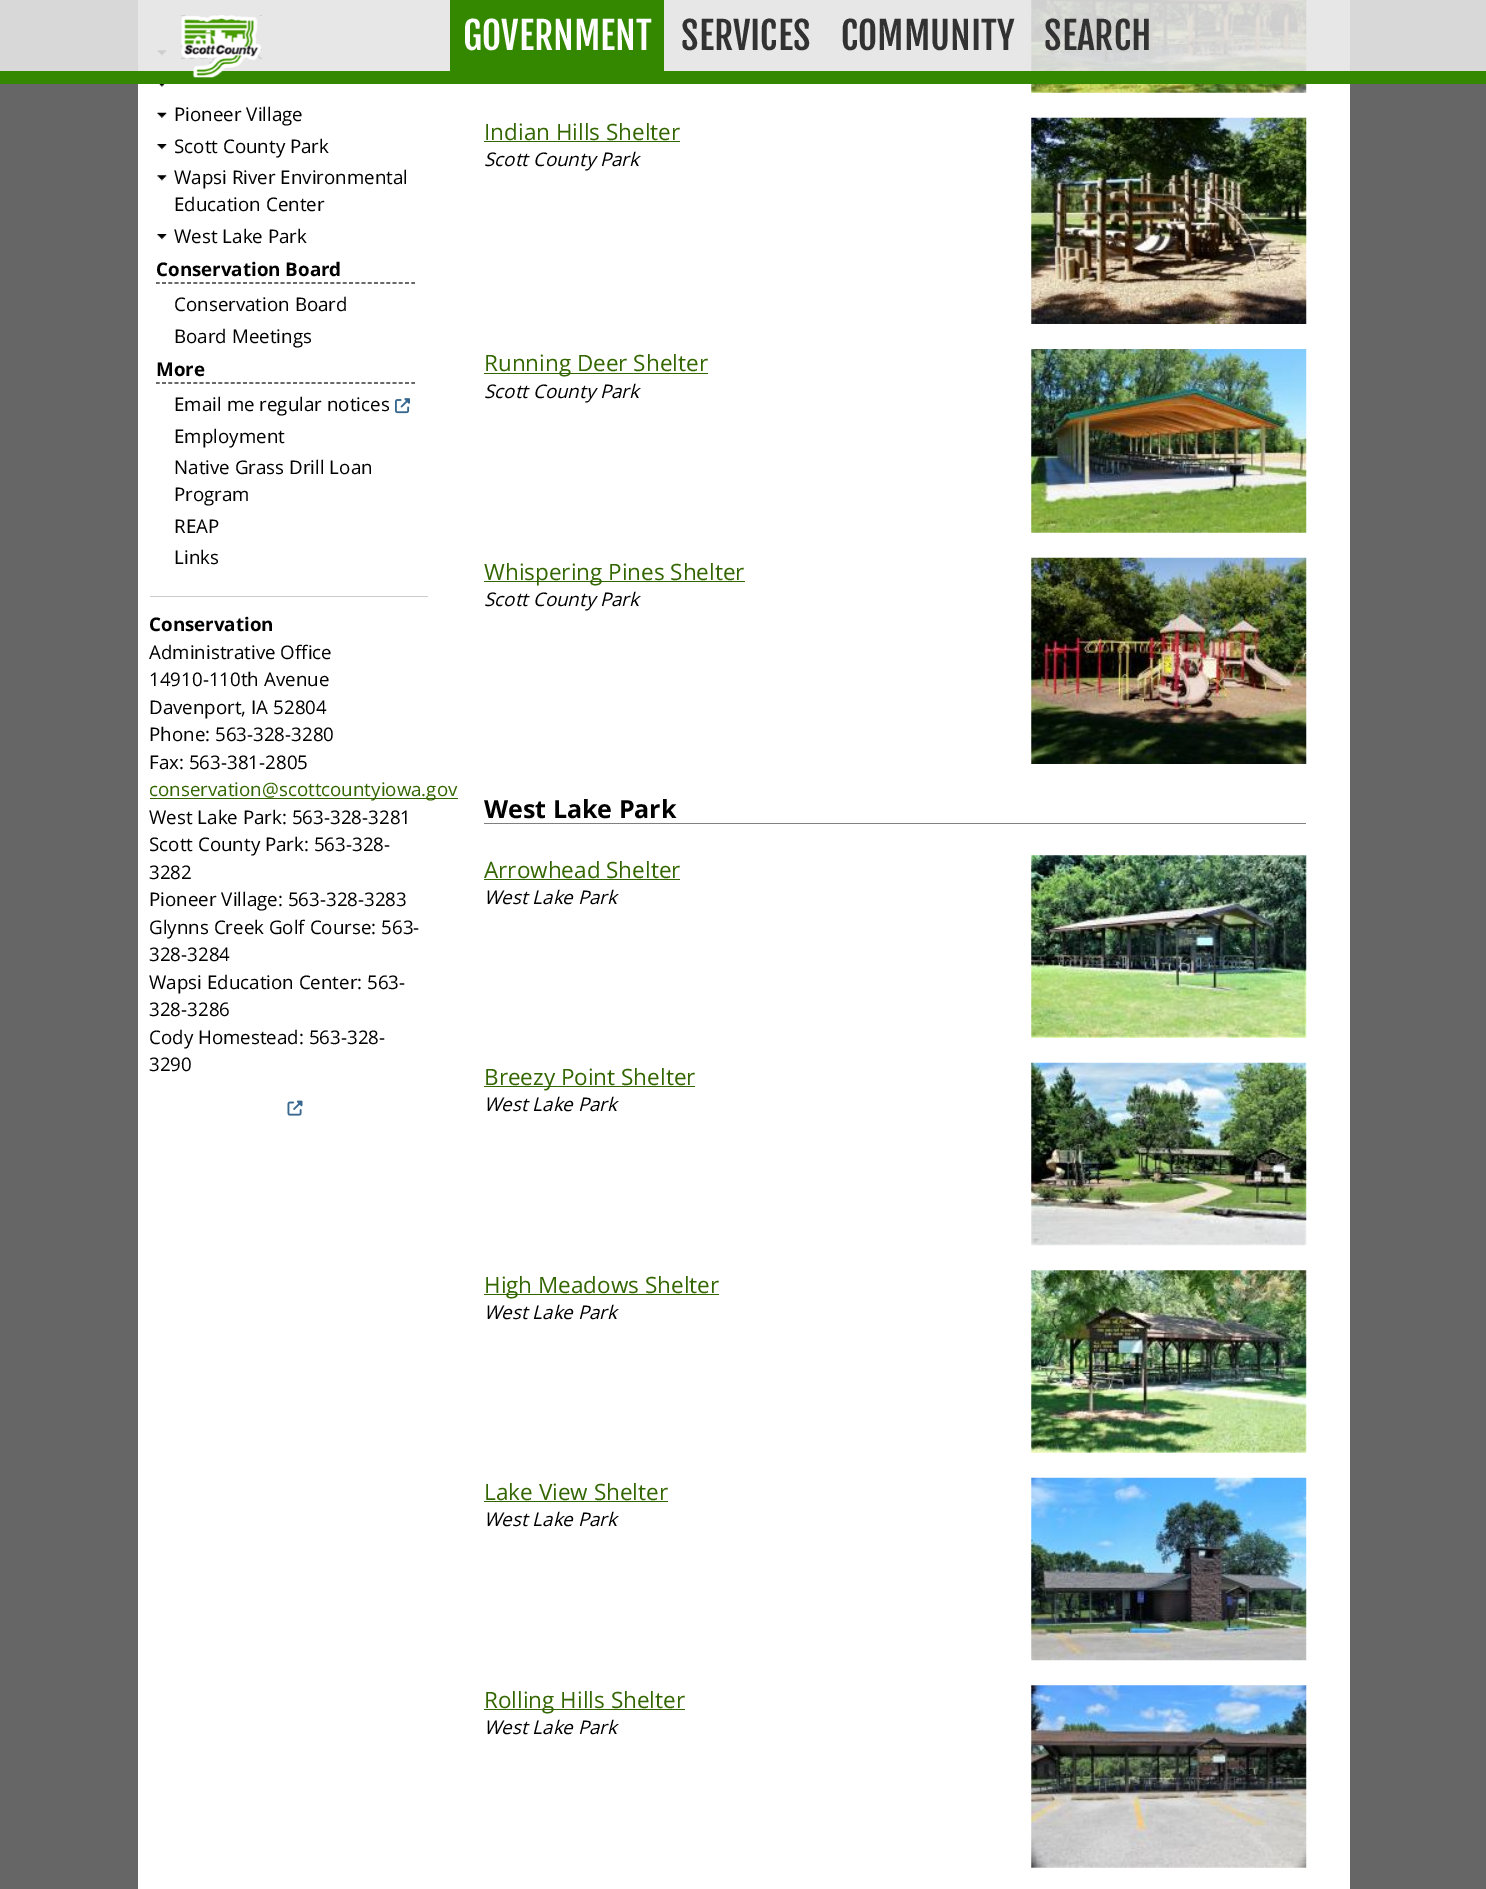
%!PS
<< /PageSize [1486 1889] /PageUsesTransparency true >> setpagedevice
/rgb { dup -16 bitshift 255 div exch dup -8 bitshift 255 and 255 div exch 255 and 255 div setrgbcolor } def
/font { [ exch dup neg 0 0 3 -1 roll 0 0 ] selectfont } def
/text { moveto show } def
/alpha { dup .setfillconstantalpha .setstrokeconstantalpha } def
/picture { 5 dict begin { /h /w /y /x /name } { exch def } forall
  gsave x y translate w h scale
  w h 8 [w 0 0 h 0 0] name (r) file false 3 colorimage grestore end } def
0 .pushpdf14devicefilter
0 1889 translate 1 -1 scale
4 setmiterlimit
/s1 { /FjallaOne-Regular 37.5 font 16#FFFFFF rgb } def
/s2 { /FjallaOne-Regular 37.5 font 16#323232 rgb } def
/s3 { /OpenSans-Regular 18.75 font 16#000000 rgb } def
/s4 { /OpenSans-Bold 18.75 font 16#000000 rgb } def
/s5 { /OpenSans-Regular 18.75 font 16#336600 rgb } def
/s6 { /OpenSans-Regular 22.5 font 16#336600 rgb } def
/s7 { /OpenSans-Italic 18.75 font 16#000000 rgb } def
/s8 { /OpenSans-Bold 25 font 16#000000 rgb } def
16#666666 rgb
0 0 1486 1889 rectfill
16#FFFFFF rgb
138 0 1212 1889 rectfill
(pic8.raw) 1031 0 276 93 picture
16#338800 rgb
0 71 1486 13 rectfill
(pic2.raw) 157 50 10 6 picture
0.9 alpha
16#E4E4E4 rgb
0 0 1486 71 rectfill
1 alpha
(pic1.raw) 181 15 81 63 picture
16#338800 rgb
450 0 214 71 rectfill
s1
(GOVERNMENT) 463 50 text
s2
(SERVICES) 681 50 text
(COMMUNITY) 841 50 text
(SEARCH) 1044 50 text
(pic3.raw) 158 84 7 3 picture
(pic4.raw) 157 112 10 6 picture
s3
(Pioneer Village) 174 121 text
(pic5.raw) 157 144 10 6 picture
(Scott County Park) 174 153 text
(pic2.raw) 157 175 10 6 picture
(Wapsi River Environmental) 174 184 text
(Education Center) 174 211 text
(pic5.raw) 157 234 10 6 picture
(West Lake Park) 174 243 text
16#333333 rgb
1.2 setlinewidth
[3.75 2.48] 0 setdash
156 283 moveto 415 283 lineto stroke
s4
(Conservation Board) 156 276 text
s3
(Conservation Board) 174 311 text
(Board Meetings) 174 343 text
16#333333 rgb
156 383 moveto 415 383 lineto stroke
s4
(More) 156 376 text
s3
(Email me regular notices) 174 411 text
(pic6.raw) 395 398 15 16 picture
(Employment) 174 443 text
(Native Grass Drill Loan) 174 474 text
(Program) 174 501 text
(REAP) 174 533 text
(Links) 174 564 text
16#CCCCCC rgb
150 596 278 1 rectfill
s4
(Conservation) 149 631 text
s3
(Administrative Office) 149 659 text
(14910-110th Avenue) 149 686 text
(Davenport, IA 52804) 149 714 text
(Phone: 563-328-3280) 149 741 text
(Fax: 563-381-2805) 149 769 text
16#336600 rgb
150 798 308 1 rectfill
(conservation@scottcountyiowa.gov) 149 796 text
s3
(West Lake Park: 563-328-3281) 149 824 text
(Scott County Park: 563-328-) 149 851 text
(3282) 149 879 text
(Pioneer Village: 563-328-3283) 149 906 text
(Glynns Creek Golf Course: 563-) 149 934 text
(328-3284) 149 961 text
(Wapsi Education Center: 563-) 149 989 text
(328-3286) 149 1016 text
(Cody Homestead: 563-328-) 149 1044 text
(3290) 149 1071 text
(pic7.raw) 287 1100 16 16 picture
s6
(Indian Hills Shelter) 484 140 text
484 141 196 1 rectfill
(pic9.raw) 1031 117 276 207 picture
s7
(Scott County Park) 484 166 text
16#336600 rgb
484 373 224 1 rectfill
s6
(Running Deer Shelter) 484 371 text
(pic10.raw) 1031 349 276 184 picture
s7
(Scott County Park) 484 398 text
16#336600 rgb
484 581 261 1 rectfill
s6
(Whispering Pines Shelter) 484 580 text
(pic11.raw) 1031 557 276 207 picture
s7
(Scott County Park) 484 606 text
16#808080 rgb
484 823 822 1 rectfill
s8
(West Lake Park) 484 818 text
s6
(Arrowhead Shelter) 484 878 text
484 879 196 1 rectfill
(pic12.raw) 1031 855 276 183 picture
s7
(West Lake Park) 484 904 text
16#336600 rgb
484 1086 211 1 rectfill
s6
(Breezy Point Shelter) 484 1085 text
(pic13.raw) 1031 1062 276 184 picture
s7
(West Lake Park) 484 1111 text
16#336600 rgb
484 1294 235 1 rectfill
s6
(High Meadows Shelter) 484 1293 text
(pic14.raw) 1031 1270 276 183 picture
s7
(West Lake Park) 484 1319 text
s6
(Lake View Shelter) 484 1500 text
484 1501 184 1 rectfill
(pic15.raw) 1031 1477 276 184 picture
s7
(West Lake Park) 484 1526 text
16#336600 rgb
484 1709 201 1 rectfill
s6
(Rolling Hills Shelter) 484 1708 text
(pic16.raw) 1031 1685 276 183 picture
s7
(West Lake Park) 484 1734 text
.poppdf14devicefilter showpage
